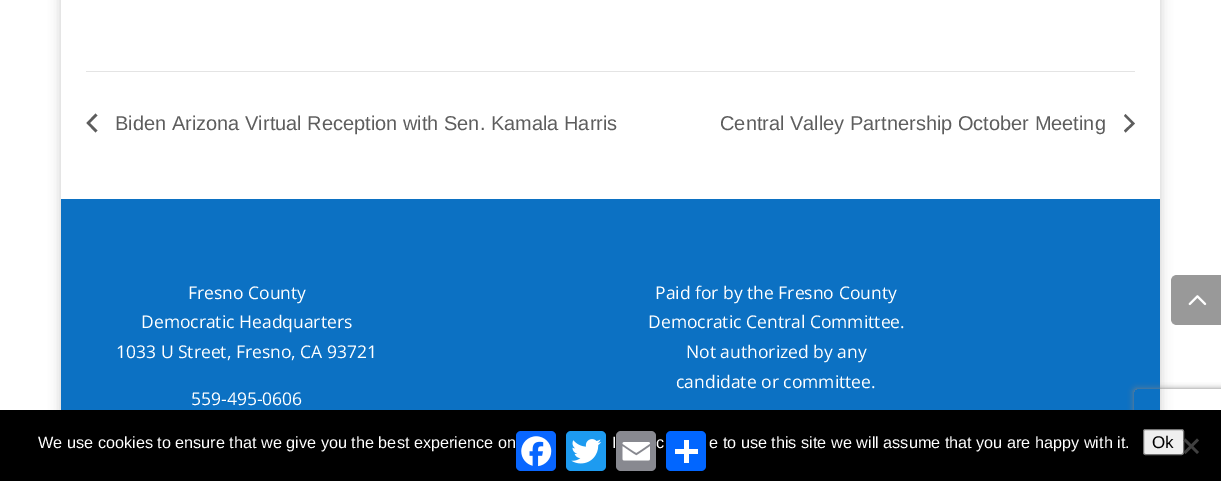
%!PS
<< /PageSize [1221 481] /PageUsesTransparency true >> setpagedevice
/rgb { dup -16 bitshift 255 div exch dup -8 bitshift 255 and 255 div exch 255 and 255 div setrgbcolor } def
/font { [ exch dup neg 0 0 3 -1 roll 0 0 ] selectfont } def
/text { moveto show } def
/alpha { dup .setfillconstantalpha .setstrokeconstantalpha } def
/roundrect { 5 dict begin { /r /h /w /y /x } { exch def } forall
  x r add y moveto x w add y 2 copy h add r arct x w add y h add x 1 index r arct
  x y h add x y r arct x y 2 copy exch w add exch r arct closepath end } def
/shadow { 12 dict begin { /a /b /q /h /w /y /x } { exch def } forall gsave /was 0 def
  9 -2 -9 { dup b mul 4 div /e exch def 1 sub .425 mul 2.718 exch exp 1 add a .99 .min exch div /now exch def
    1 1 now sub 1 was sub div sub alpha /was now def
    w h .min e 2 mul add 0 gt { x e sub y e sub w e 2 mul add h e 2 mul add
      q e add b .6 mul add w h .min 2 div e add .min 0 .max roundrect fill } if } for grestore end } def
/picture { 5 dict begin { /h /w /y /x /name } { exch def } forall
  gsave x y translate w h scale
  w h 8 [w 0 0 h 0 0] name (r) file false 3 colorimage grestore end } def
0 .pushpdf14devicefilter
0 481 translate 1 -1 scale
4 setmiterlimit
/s1 { /LiberationSans-Regular 20 font 16#5D5D5D rgb } def
/s2 { /OpenSans-Regular 17.5 font 16#FFFFFF rgb } def
/s3 { /LiberationSans-Regular 16.25 font 16#FFFFFF rgb } def
/s4 { /LiberationSans-Regular 17 font 16#000000 rgb } def
16#FFFFFF rgb
0 0 1221 481 rectfill
gsave
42 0 moveto 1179 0 lineto 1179 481 lineto 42 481 lineto closepath 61 -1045 moveto 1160 -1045 lineto 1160 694 lineto 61 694 lineto closepath eoclip newpath
16#000000 rgb
61 -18 1099 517 0 6 0.2 shadow
grestore
16#E4E4E4 rgb
86 71 1049 1 rectfill
16#5D5D5D rgb
97.5 130.5 moveto 95.5 132.5 lineto 86.5 123 lineto 95.5 113.5 lineto 97.5 115.5 lineto 90 123 lineto closepath fill
s1
(Biden Arizona Virtual Reception with Sen. Kamala Harris) 115 130 text
(Central Valley Partnership October Meeting) 720 130 text
1124 116 moveto 1125.5 114 lineto 1135 123.5 lineto 1125.5 132.5 lineto 1124 130.5 lineto 1131.5 123.5 lineto closepath fill
16#0C71C3 rgb
61 199 1099 211 rectfill
s2
(Fresno County) 188 299 text
(Democratic Headquarters) 141 328 text
(1033 U Street, Fresno, CA 93721) 116 358 text
(559-495-0606) 191 405 text
(Paid for by the Fresno County) 655 299 text
(Democratic Central Committee.) 648 328 text
(Not authorized by any) 686 358 text
(candidate or committee.) 676 388 text
16#999999 rgb
1177 275 moveto 1221 275 lineto 1221 325 lineto 1177 325 lineto 1173.5 325 1171 322.5 1171 319 curveto 1171 281 lineto 1171 277.5 1173.5 275 1177 275 curveto closepath fill
(pic1.raw) 1188 295 19 11 picture
gsave
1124 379 moveto 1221 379 lineto 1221 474 lineto 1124 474 lineto closepath 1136.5 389 moveto 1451.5 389 lineto 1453 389 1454 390 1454 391.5 curveto 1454 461.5 lineto 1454 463 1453 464 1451.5 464 curveto 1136.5 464 lineto 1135 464 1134 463 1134 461.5 curveto 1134 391.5 lineto 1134 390 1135 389 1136.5 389 curveto closepath eoclip newpath
16#808080 rgb
1134 389 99 75 2.5 3 1 shadow
grestore
16#000000 rgb
0 410 1221 71 rectfill
16#0866FF rgb
516 431 40 40 5 roundrect fill
(pic2.raw) 521 436 31 31 picture
16#1D9BF0 rgb
566 431 40 40 5 roundrect fill
(pic3.raw) 571 439 31 25 picture
16#888990 rgb
616 431 40 40 5 roundrect fill
(pic4.raw) 622 442 28 19 picture
16#0166FF rgb
666 431 40 40 5 roundrect fill
16#FFFFFF rgb
684 440 5 23 rectfill
675 449 23 5 rectfill
s3
(We use cookies to ensure that we give you the best experience on) 38 448 text
(I) 612 448 text
(c) 656 448 text
(e to use this site we will assume that you are happy with it.) 709 448 text
16#EFEFEF rgb
1143.5 429.5 40 25 2 roundrect gsave fill grestore
16#767676 rgb
stroke
s4
(Ok) 1152 448 text
16#404040 rgb
1197 438.5 moveto 1199 440.5 lineto 1185.5 454 lineto 1183.5 452 lineto closepath fill
1183.5 440.5 moveto 1185.5 438.5 lineto 1199 452 lineto 1197 454 lineto closepath fill
.poppdf14devicefilter showpage
